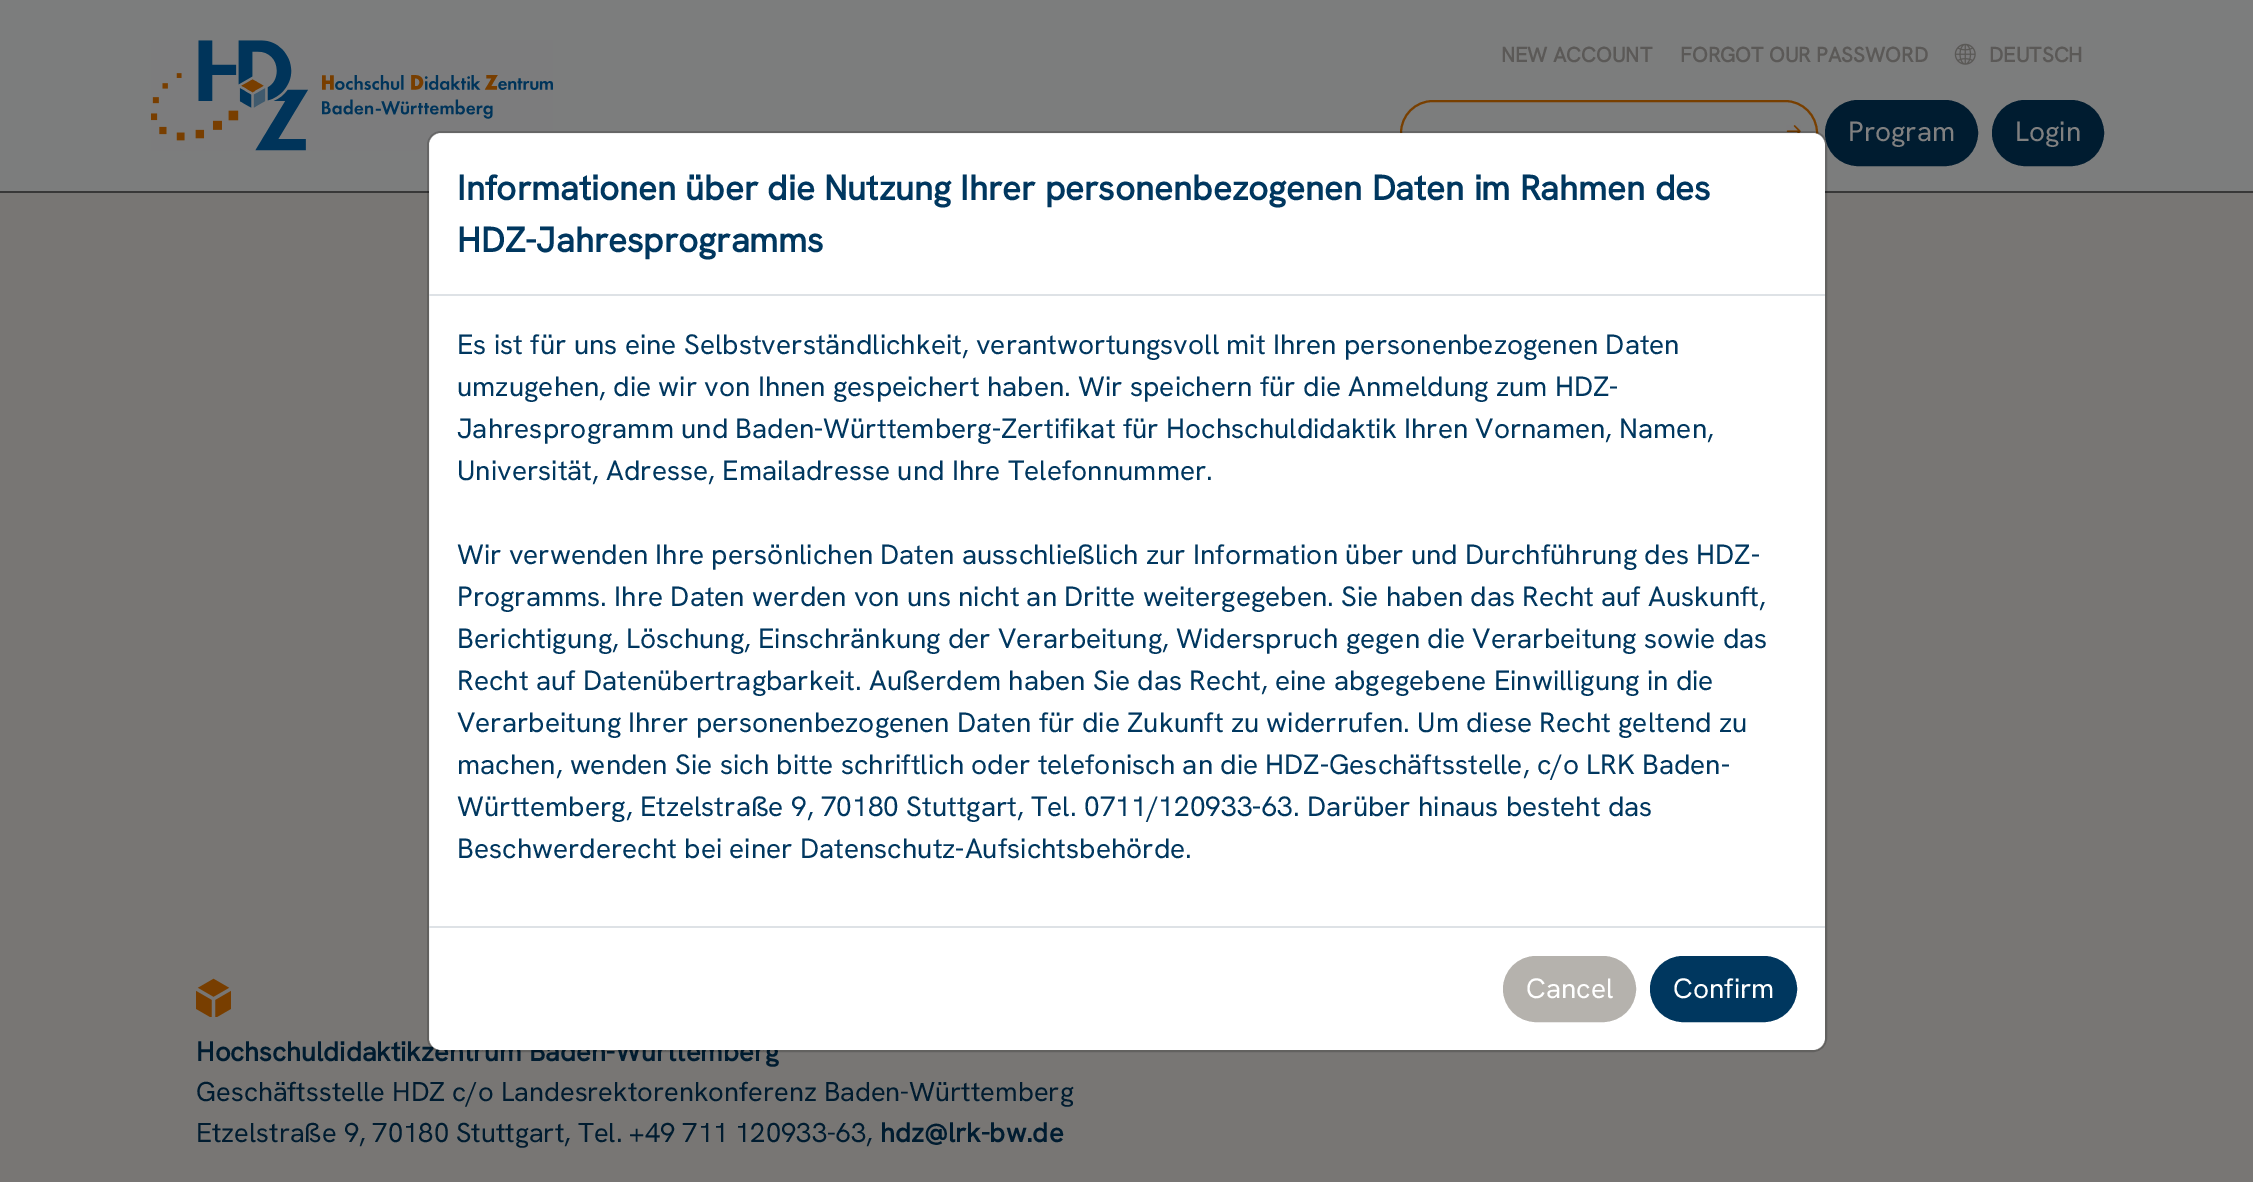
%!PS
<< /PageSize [2253 1182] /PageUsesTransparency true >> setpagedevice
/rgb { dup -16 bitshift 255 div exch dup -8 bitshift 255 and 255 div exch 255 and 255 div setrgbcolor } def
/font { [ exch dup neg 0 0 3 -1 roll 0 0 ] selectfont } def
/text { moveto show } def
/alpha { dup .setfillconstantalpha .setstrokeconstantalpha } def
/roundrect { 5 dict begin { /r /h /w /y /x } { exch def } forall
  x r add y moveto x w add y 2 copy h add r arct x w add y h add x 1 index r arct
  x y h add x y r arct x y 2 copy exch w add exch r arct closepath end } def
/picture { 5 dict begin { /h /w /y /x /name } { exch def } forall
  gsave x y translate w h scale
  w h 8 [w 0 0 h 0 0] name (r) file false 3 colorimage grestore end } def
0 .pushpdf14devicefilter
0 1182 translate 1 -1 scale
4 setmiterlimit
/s1 { /HankenGrotesk-Bold 21 font 16#5B5957 rgb } def
/s2 { /HankenGrotesk-Regular 28 font 16#808080 rgb } def
/s3 { /HankenGrotesk-Bold 27.3 font 16#001C30 rgb } def
/s4 { /HankenGrotesk-Bold 35 font 16#00375F rgb } def
/s5 { /HankenGrotesk-Regular 28 font 16#00375F rgb } def
/s6 { /HankenGrotesk-Regular 28 font 16#FFFFFF rgb } def
/s7 { /HankenGrotesk-Regular 27.3 font 16#001C30 rgb } def
16#787674 rgb
0 0 2253 1182 rectfill
16#7C7D7D rgb
0 0 2253 191 rectfill
16#383838 rgb
0 191 2253 2 rectfill
(pic1.raw) 151 40 402 111 picture
s1
(NEW ACCOUNT) 1501 62 text
(FORGOT OUR PASSWORD) 1680 62 text
(pic2.raw) 1954 43 22 22 picture
(DEUTSCH) 1989 62 text
16#783F00 rgb
2 setlinewidth
1401 101 416 64 32 roundrect stroke
(pic3.raw) 1786 125 15 8 picture
16#001C30 rgb
1826 101 151 64 32 roundrect gsave fill grestore
stroke
s2
(Program) 1848 141 text
16#001C30 rgb
1993 101 110 64 32 roundrect gsave fill grestore
stroke
s2
(Login) 2015 141 text
s3
(Hochschuldidaktikzentrum Baden-Württemberg) 196 1061 text
16#FFFFFF rgb
429 133 1396 917 12 roundrect fill
0.18 alpha
16#000000 rgb
428 132 1398 919 13 roundrect stroke
1 alpha
16#DEE2E6 rgb
429 294 1396 2 rectfill
s4
(Informationen über die Nutzung Ihrer personenbezogenen Daten im Rahmen des) 457 200 text
(HDZ-Jahresprogramms) 457 252 text
s5
(Es ist für uns eine Selbstverständlichkeit, verantwortungsvoll mit Ihren personenbezogenen Daten) 457 354 text
(umzugehen, die wir von Ihnen gespeichert haben. Wir speichern für die Anmeldung zum HDZ-) 457 396 text
(Jahresprogramm und Baden-Württemberg-Zertifikat für Hochschuldidaktik Ihren Vornamen, Namen,) 457 438 text
(Universität, Adresse, Emailadresse und Ihre Telefonnummer.) 457 480 text
(Wir verwenden Ihre persönlichen Daten ausschließlich zur Information über und Durchführung des HDZ-) 457 564 text
(Programms. Ihre Daten werden von uns nicht an Dritte weitergegeben. Sie haben das Recht auf Auskunft,) 457 606 text
(Berichtigung, Löschung, Einschränkung der Verarbeitung, Widerspruch gegen die Verarbeitung sowie das) 457 648 text
(Recht auf Datenübertragbarkeit. Außerdem haben Sie das Recht, eine abgegebene Einwilligung in die) 457 690 text
(Verarbeitung Ihrer personenbezogenen Daten für die Zukunft zu widerrufen. Um diese Recht geltend zu) 457 732 text
(machen, wenden Sie sich bitte schriftlich oder telefonisch an die HDZ-Geschäftsstelle, c/o LRK Baden-) 457 774 text
(Württemberg, Etzelstraße 9, 70180 Stuttgart, Tel. 0711/120933-63. Darüber hinaus besteht das) 457 816 text
(Beschwerderecht bei einer Datenschutz-Aufsichtsbehörde.) 457 858 text
16#DEE2E6 rgb
429 926 1396 2 rectfill
16#B5B2AD rgb
1504 957 131 64 32 roundrect gsave fill grestore
stroke
s6
(Cancel) 1526 998 text
16#00375F rgb
1651 957 145 64 32 roundrect gsave fill grestore
stroke
s6
(Confirm) 1673 998 text
(pic4.raw) 196 978 35 39 picture
s7
(Geschäftsstelle HDZ c/o Landesrektorenkonferenz Baden-Württemberg) 196 1101 text
(Etzelstraße 9, 70180 Stuttgart, Tel. +49 711 120933-63,) 196 1142 text
s3
(hdz@lrk-bw.de) 880 1142 text
.poppdf14devicefilter showpage
